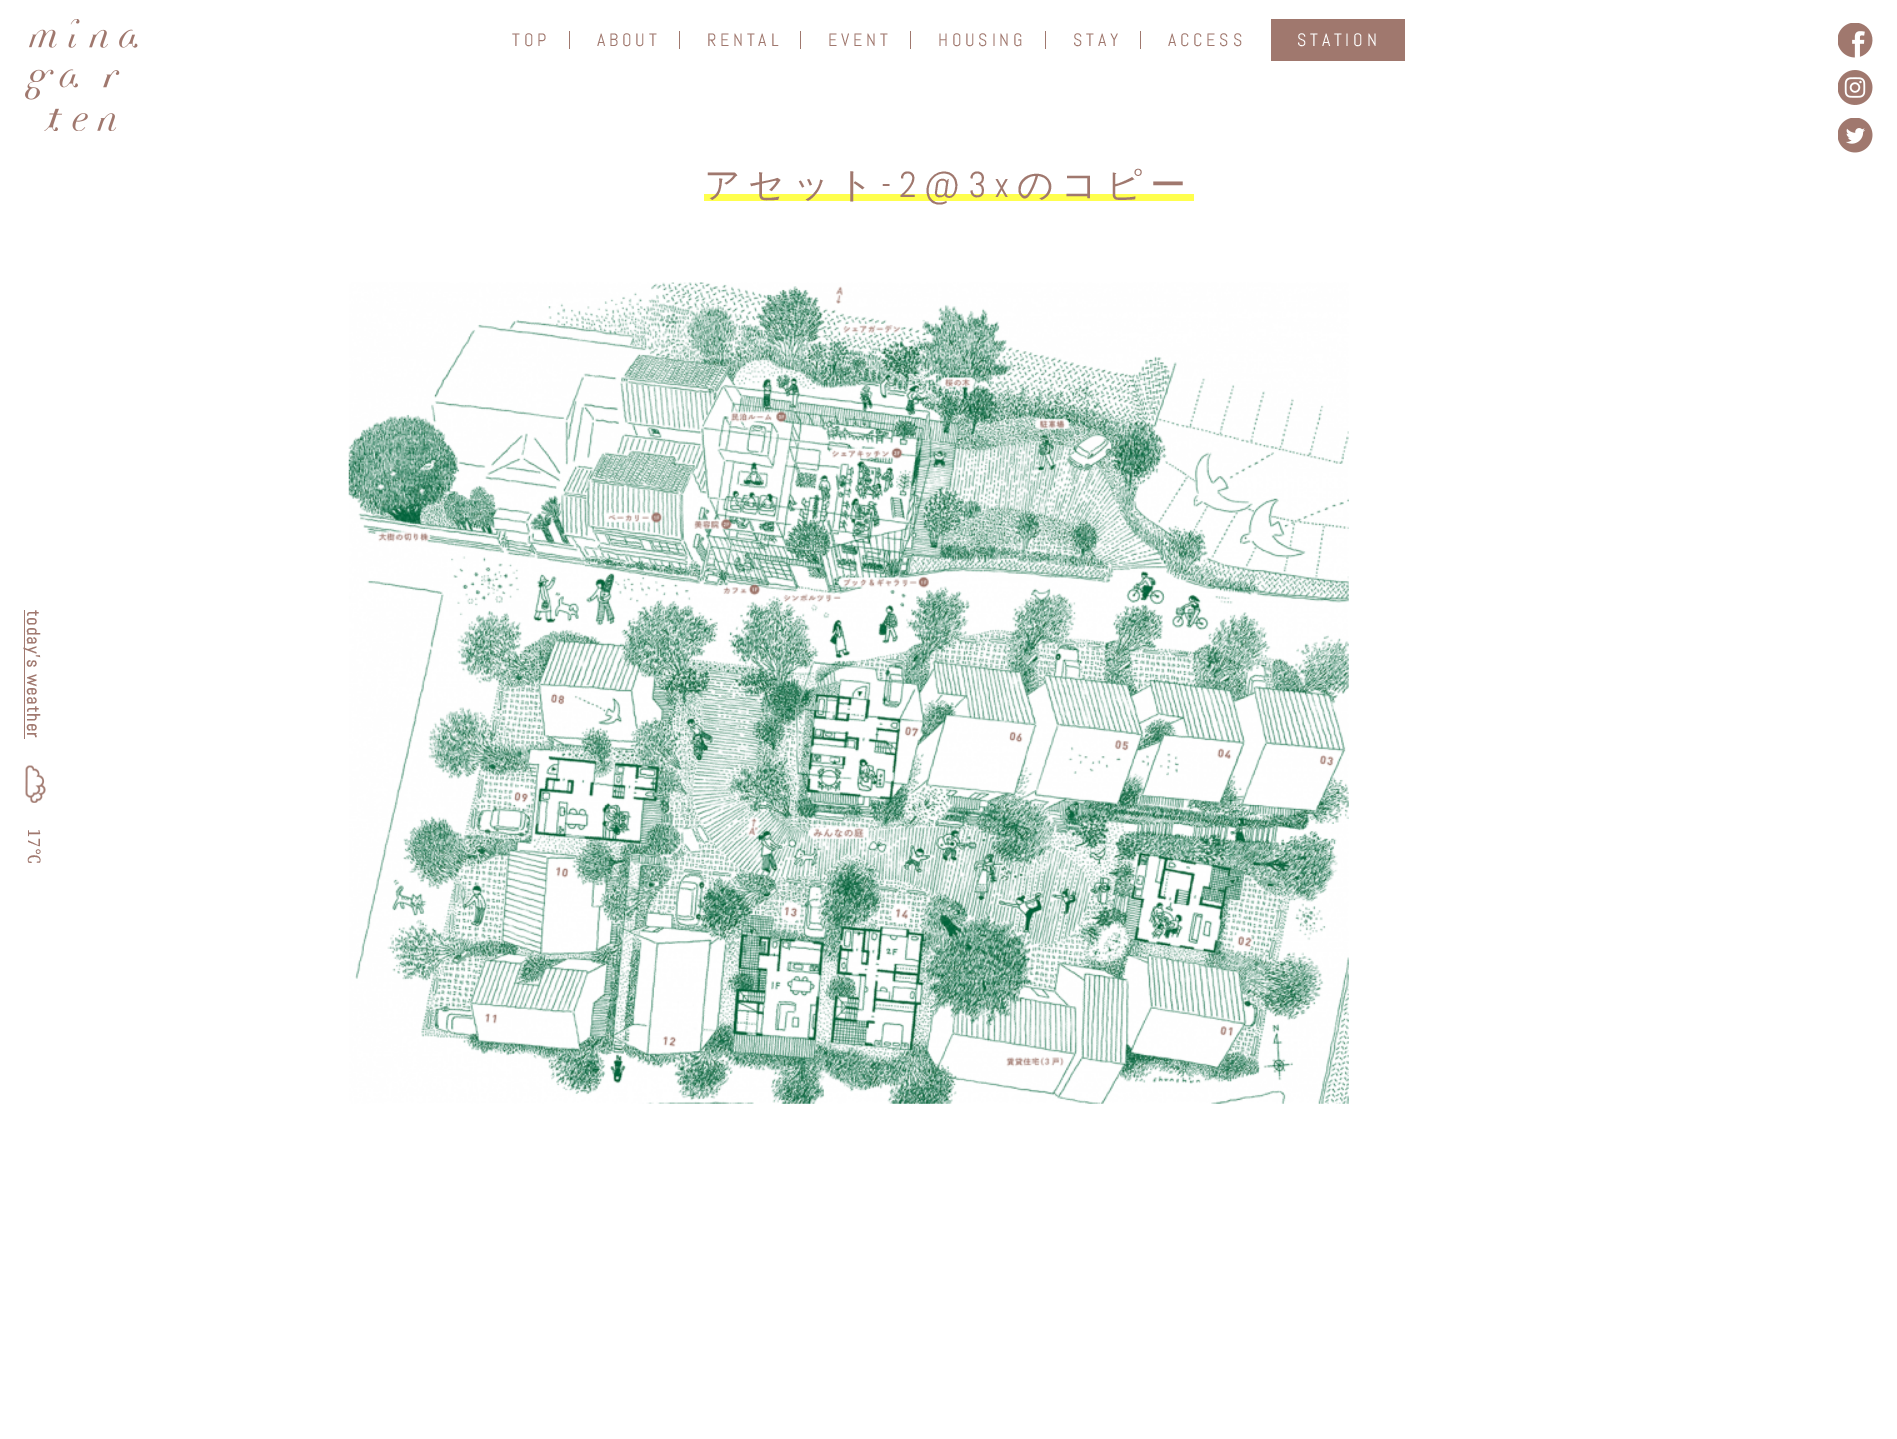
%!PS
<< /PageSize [1897 1439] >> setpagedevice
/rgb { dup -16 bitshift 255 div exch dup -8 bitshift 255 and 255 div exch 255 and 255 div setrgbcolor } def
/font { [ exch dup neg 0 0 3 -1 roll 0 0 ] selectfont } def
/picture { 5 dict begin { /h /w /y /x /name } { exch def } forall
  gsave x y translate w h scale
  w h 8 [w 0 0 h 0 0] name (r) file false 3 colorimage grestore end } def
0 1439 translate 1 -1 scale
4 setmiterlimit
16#FFFFFF rgb
0 0 1897 1439 rectfill
(pic1.raw) 25 19 113 112 picture
/Abel-Regular 18 font
16#A0786E rgb
512 46 moveto 3.75 0 (TOP) ashow
569 31 1 18 rectfill
597 46 moveto 3.75 0 (ABOUT) ashow
679 31 1 18 rectfill
707 46 moveto 3.75 0 (RENTAL) ashow
800 31 1 18 rectfill
828 46 moveto 3.75 0 (EVENT) ashow
910 31 1 18 rectfill
938 46 moveto 3.75 0 (HOUSING) ashow
1045 31 1 18 rectfill
1073 46 moveto 3.75 0 (STAY) ashow
1140 31 1 18 rectfill
1168 46 moveto 3.75 0 (ACCESS) ashow
1271 19 134 42 rectfill
16#FFFFFF rgb
1297 46 moveto 3.75 0 (STATION) ashow
(pic2.raw) 1838 23 35 35 picture
(pic3.raw) 1838 70 35 35 picture
(pic4.raw) 1838 118 35 35 picture
gsave 704 193 moveto 1194 193 lineto 1194 201 lineto 704 201 lineto closepath clip newpath
<< /ShadingType 2 /ColorSpace /DeviceRGB /Coords [949 211 949 161] /Extend [true true] /Function << /FunctionType 3 /Domain [0 1] /Functions [<< /FunctionType 2 /Domain [0 1] /C0 [1 1 1] /C1 [1 1 1] /N 1 >> << /FunctionType 2 /Domain [0 1] /C0 [1 1 0.302] /C1 [1 1 0.302] /N 1 >> << /FunctionType 2 /Domain [0 1] /C0 [1 1 1] /C1 [1 1 1] /N 1 >>] /Bounds [0.2 0.35] /Encode [0 1 0 1 0 1] >> >> shfill grestore
/WenQuanYiZenHei-Medium 36 font
16#A0786E rgb
704 197 moveto 7.5 0 (アセット) ashow
/Abel-Regular 36 font
881 197 moveto 7.5 0 (-2@3x) ashow
/WenQuanYiZenHei-Medium 36 font
1017 197 moveto 7.5 0 (のコピー) ashow
(pic5.raw) 348 282 1001 822 picture
24 610 1 129 rectfill
/Abel-Bold 18 font
gsave 27 610 translate 90 rotate 0 0 moveto 1.25 0 (today's weather) ashow grestore
(pic6.raw) 25 765 21 38 picture
/NotoSerifJP-Bold 16 font
gsave 28 829 translate 90 rotate 0 0 moveto 1.25 0 (17℃) ashow grestore
showpage
